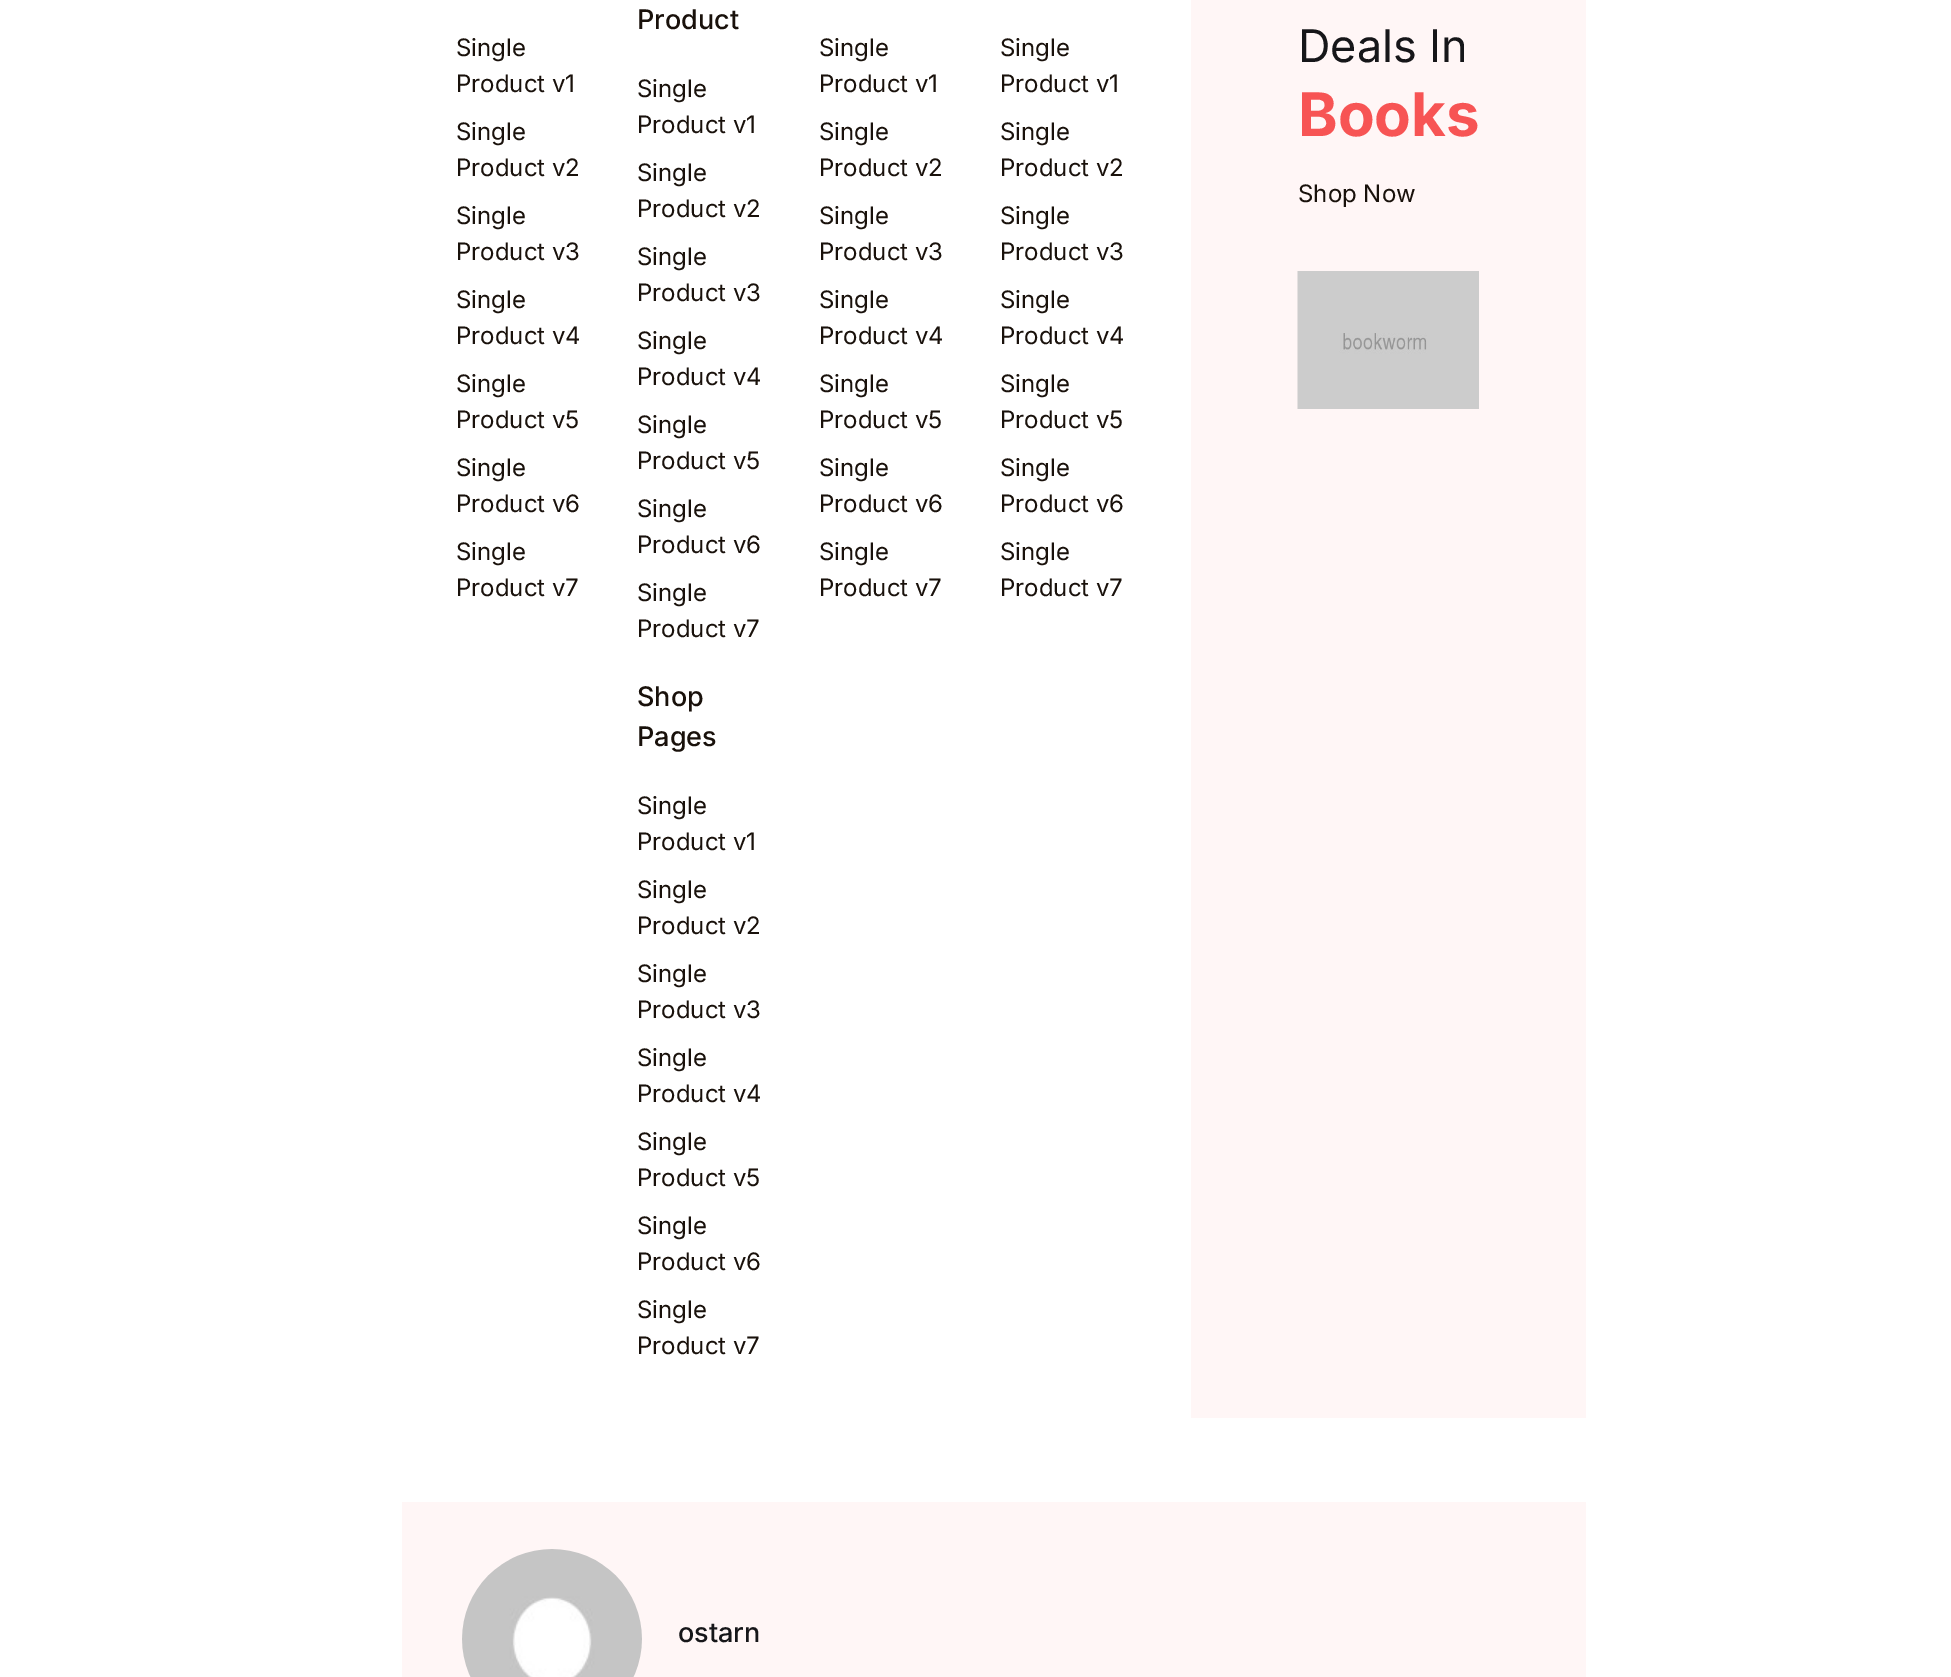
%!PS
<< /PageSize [1951 1677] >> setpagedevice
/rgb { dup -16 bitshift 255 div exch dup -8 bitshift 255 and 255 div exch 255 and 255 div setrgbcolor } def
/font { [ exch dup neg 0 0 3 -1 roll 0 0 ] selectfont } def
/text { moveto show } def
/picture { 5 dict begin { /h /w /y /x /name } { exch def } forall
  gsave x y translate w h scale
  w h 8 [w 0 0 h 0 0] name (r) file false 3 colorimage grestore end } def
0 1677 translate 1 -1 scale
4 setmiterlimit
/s1 { /Inter-Regular 24 font 16#19110B rgb } def
/s2 { /Inter-Medium 27 font 16#19110B rgb } def
/s3 { /Inter-Regular 45 font 16#161619 rgb } def
/s4 { /Inter-Bold 60 font 16#F75454 rgb } def
/s5 { /Inter-Medium 27 font 16#161619 rgb } def
16#FFFFFF rgb
0 0 1951 1677 rectfill
s1
(Single) 456 56 text
(Product v1) 456 92 text
(Single) 456 140 text
(Product v2) 456 176 text
(Single) 456 224 text
(Product v3) 456 260 text
(Single) 456 308 text
(Product v4) 456 344 text
(Single) 456 392 text
(Product v5) 456 428 text
(Single) 456 476 text
(Product v6) 456 512 text
(Single) 456 560 text
(Product v7) 456 596 text
s2
(Product) 637 29 text
s1
(Single) 637 97 text
(Product v1) 637 133 text
(Single) 637 181 text
(Product v2) 637 217 text
(Single) 637 265 text
(Product v3) 637 301 text
(Single) 637 349 text
(Product v4) 637 385 text
(Single) 637 433 text
(Product v5) 637 469 text
(Single) 637 517 text
(Product v6) 637 553 text
(Single) 637 601 text
(Product v7) 637 637 text
s2
(Shop) 637 706 text
(Pages) 637 746 text
s1
(Single) 637 814 text
(Product v1) 637 850 text
(Single) 637 898 text
(Product v2) 637 934 text
(Single) 637 982 text
(Product v3) 637 1018 text
(Single) 637 1066 text
(Product v4) 637 1102 text
(Single) 637 1150 text
(Product v5) 637 1186 text
(Single) 637 1234 text
(Product v6) 637 1270 text
(Single) 637 1318 text
(Product v7) 637 1354 text
(Single) 819 56 text
(Product v1) 819 92 text
(Single) 819 140 text
(Product v2) 819 176 text
(Single) 819 224 text
(Product v3) 819 260 text
(Single) 819 308 text
(Product v4) 819 344 text
(Single) 819 392 text
(Product v5) 819 428 text
(Single) 819 476 text
(Product v6) 819 512 text
(Single) 819 560 text
(Product v7) 819 596 text
(Single) 1000 56 text
(Product v1) 1000 92 text
(Single) 1000 140 text
(Product v2) 1000 176 text
(Single) 1000 224 text
(Product v3) 1000 260 text
(Single) 1000 308 text
(Product v4) 1000 344 text
(Single) 1000 392 text
(Product v5) 1000 428 text
(Single) 1000 476 text
(Product v6) 1000 512 text
(Single) 1000 560 text
(Product v7) 1000 596 text
16#FFF6F6 rgb
1191 0 395 1418 rectfill
s3
(Deals In) 1298 62 text
s4
(Books) 1298 136 text
s1
(Shop Now) 1298 202 text
(pic1.raw) 1297 271 182 138 picture
16#FFF6F6 rgb
402 1502 1184 175 rectfill
(pic2.raw) 462 1549 180 128 picture
s5
(ostarn) 678 1642 text
showpage
